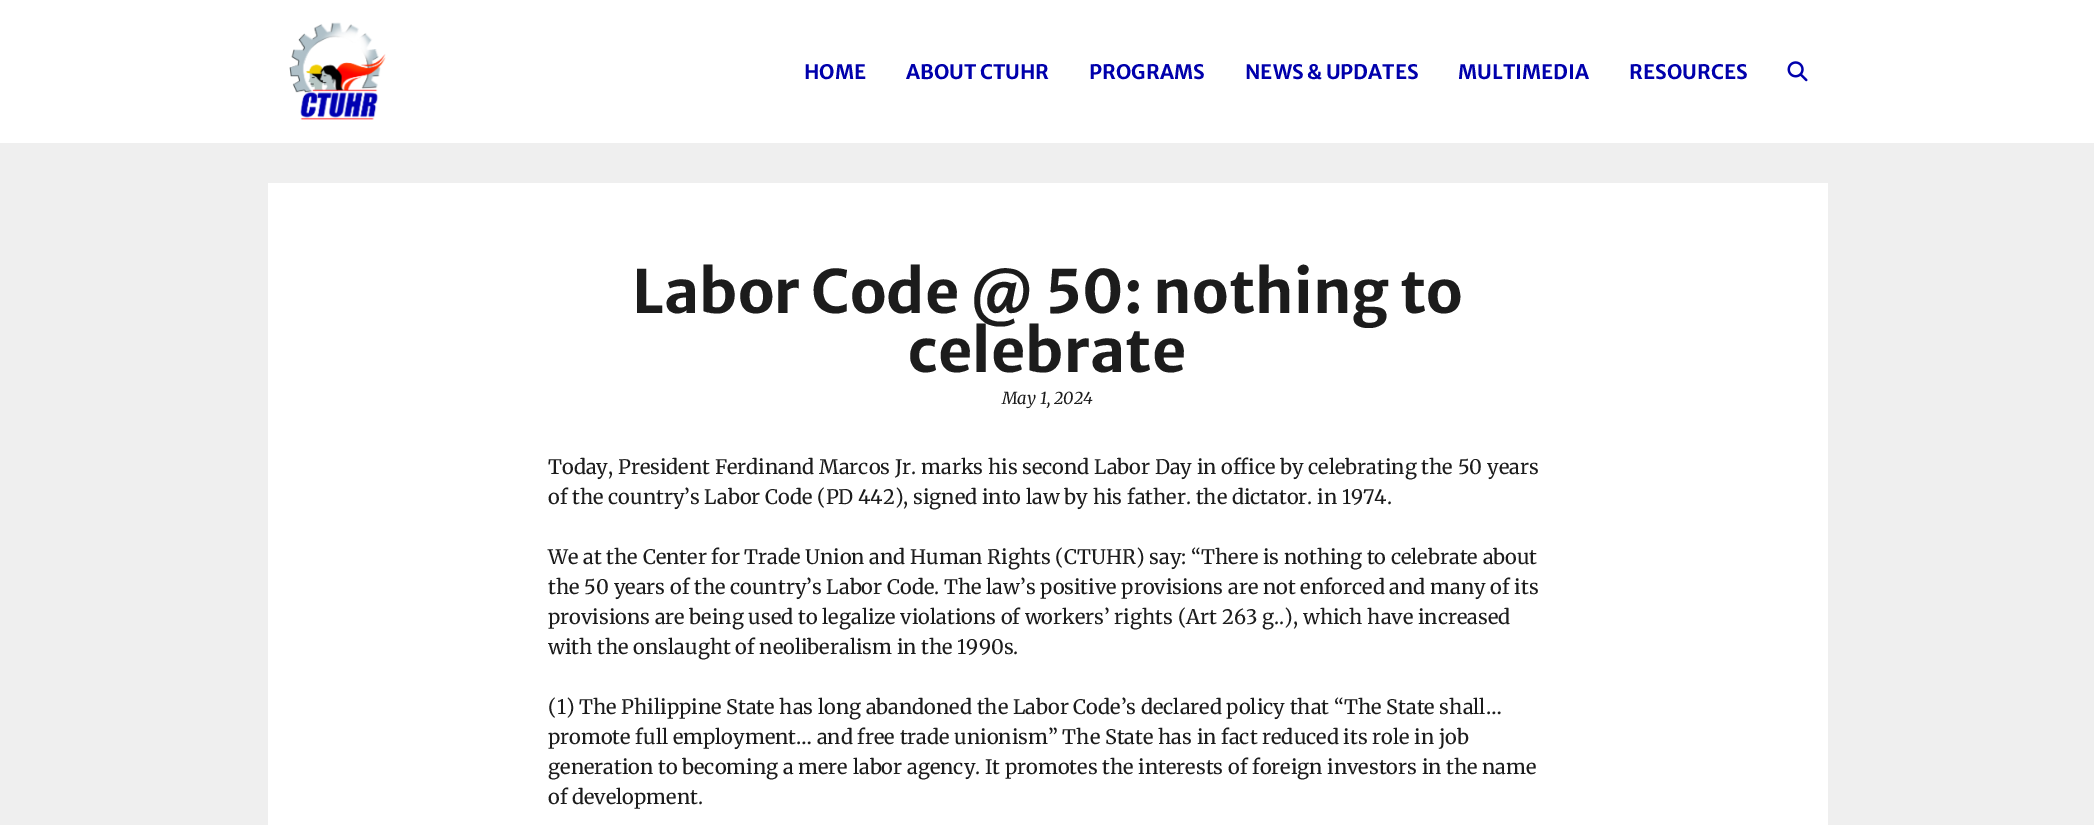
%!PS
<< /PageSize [2094 825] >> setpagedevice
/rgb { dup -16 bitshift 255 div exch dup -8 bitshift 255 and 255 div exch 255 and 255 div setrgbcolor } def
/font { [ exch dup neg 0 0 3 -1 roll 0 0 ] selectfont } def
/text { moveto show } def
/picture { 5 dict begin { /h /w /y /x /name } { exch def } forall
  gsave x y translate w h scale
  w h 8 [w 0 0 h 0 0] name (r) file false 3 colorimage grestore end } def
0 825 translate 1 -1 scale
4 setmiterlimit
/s1 { /MerriweatherSans-Bold 20 font 16#0000AC rgb } def
/s2 { /MerriweatherSans-Bold 59.75 font 16#1C1C1C rgb } def
/s3 { /Merriweather-Italic 16.5 font 16#1C1C1C rgb } def
/s4 { /Merriweather-Regular 20 font 16#1C1C1C rgb } def
16#FFFFFF rgb
0 0 2094 825 rectfill
(pic1.raw) 289 22 97 98 picture
s1
(HOME) 804 79 text
(ABOUT CTUHR) 906 79 text
(PROGRAMS) 1089 79 text
(NEWS & UPDATES) 1245 79 text
(MULTIMEDIA) 1458 79 text
(RESOURCES) 1629 79 text
(pic2.raw) 1787 61 21 21 picture
16#EFEFEF rgb
0 143 2094 682 rectfill
16#FFFFFF rgb
268 183 1560 642 rectfill
s2
(Labor Code @ 50: nothing to) 632 313 text
(celebrate) 908 372 text
s3
(May 1, 2024) 1002 404 text
s4
(Today, President Ferdinand Marcos Jr. marks his second Labor Day in office by celebrating the 50 years) 548 474 text
(of the country’s Labor Code \(PD 442\), signed into law by his father. the dictator. in 1974.) 548 504 text
(We at the Center for Trade Union and Human Rights \(CTUHR\) say: “There is nothing to celebrate about) 548 564 text
(the 50 years of the country’s Labor Code. The law’s positive provisions are not enforced and many of its) 548 594 text
(provisions are being used to legalize violations of workers’ rights \(Art 263 g..\), which have increased) 548 624 text
(with the onslaught of neoliberalism in the 1990s.) 548 654 text
(\(1\) The Philippine State has long abandoned the Labor Code’s declared policy that “The State shall…) 548 714 text
(promote full employment… and free trade unionism” The State has in fact reduced its role in job) 548 744 text
(generation to becoming a mere labor agency. It promotes the interests of foreign investors in the name) 548 774 text
(of development.) 548 804 text
showpage
